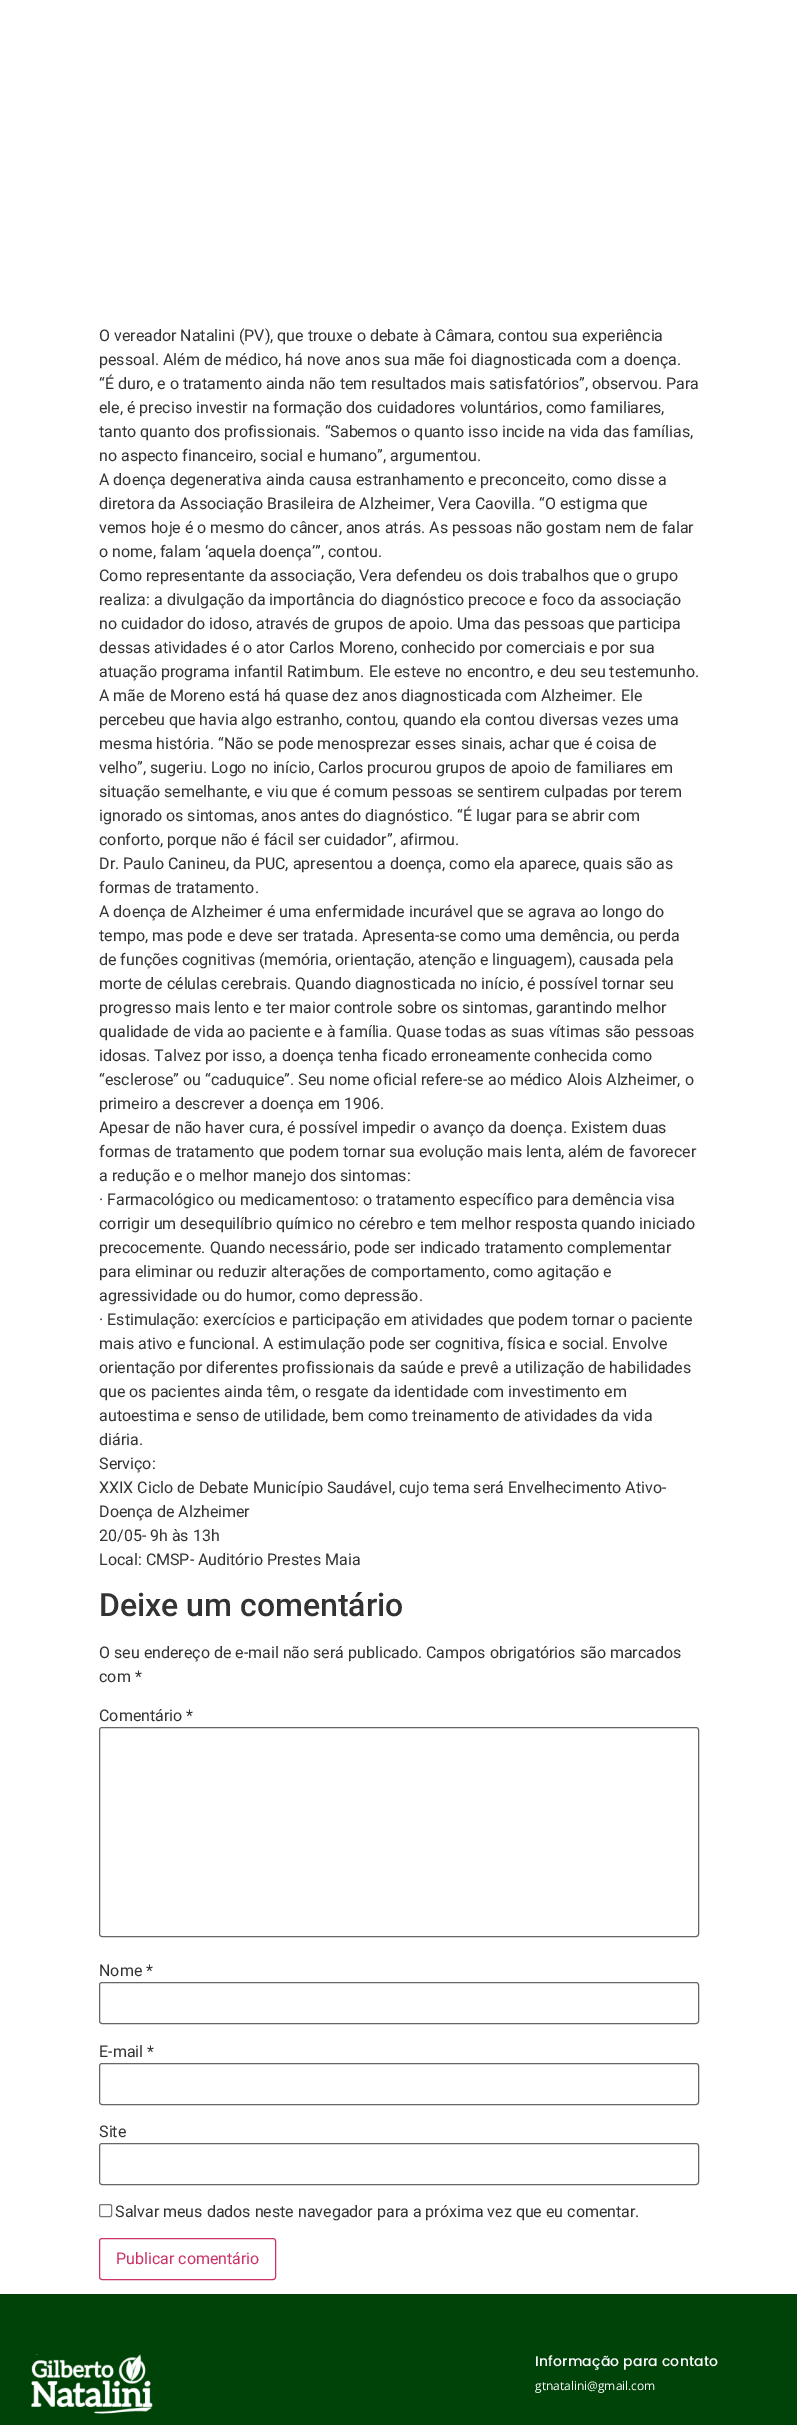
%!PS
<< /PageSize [797 2425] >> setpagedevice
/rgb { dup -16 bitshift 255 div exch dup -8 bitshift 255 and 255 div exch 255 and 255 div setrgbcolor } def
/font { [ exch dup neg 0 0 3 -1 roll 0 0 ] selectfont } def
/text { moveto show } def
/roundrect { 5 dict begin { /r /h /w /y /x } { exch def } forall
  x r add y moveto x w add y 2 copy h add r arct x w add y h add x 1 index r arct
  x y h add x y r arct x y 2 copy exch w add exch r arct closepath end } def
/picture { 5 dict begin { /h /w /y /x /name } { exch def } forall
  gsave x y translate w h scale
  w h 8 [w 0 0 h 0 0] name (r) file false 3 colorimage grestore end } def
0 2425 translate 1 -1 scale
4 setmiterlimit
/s1 { /Roboto-Regular 16 font 16#333333 rgb } def
/s2 { /Roboto-Medium 32 font 16#333333 rgb } def
/s3 { /Roboto-Regular 16 font 16#CC3366 rgb } def
/s4 { /OpenSans-Regular 12 font 16#FFFFFF rgb } def
16#FFFFFF rgb
0 0 797 2425 rectfill
s1
(O vereador Natalini \(PV\), que trouxe o debate à Câmara, contou sua experiência) 99 341 text
(pessoal. Além de médico, há nove anos sua mãe foi diagnosticada com a doença.) 99 365 text
(“É duro, e o tratamento ainda não tem resultados mais satisfatórios”, observou. Para) 99 389 text
(ele, é preciso investir na formação dos cuidadores voluntários, como familiares,) 99 413 text
(tanto quanto dos profissionais. “Sabemos o quanto isso incide na vida das famílias,) 99 437 text
(no aspecto financeiro, social e humano”, argumentou.) 99 461 text
(A doença degenerativa ainda causa estranhamento e preconceito, como disse a) 99 485 text
(diretora da Associação Brasileira de Alzheimer, Vera Caovilla. “O estigma que) 99 509 text
(vemos hoje é o mesmo do câncer, anos atrás. As pessoas não gostam nem de falar) 99 533 text
(o nome, falam ‘aquela doença’”, contou.) 99 557 text
(Como representante da associação, Vera defendeu os dois trabalhos que o grupo) 99 581 text
(realiza: a divulgação da importância do diagnóstico precoce e foco da associação) 99 605 text
(no cuidador do idoso, através de grupos de apoio. Uma das pessoas que participa) 99 629 text
(dessas atividades é o ator Carlos Moreno, conhecido por comerciais e por sua) 99 653 text
(atuação programa infantil Ratimbum. Ele esteve no encontro, e deu seu testemunho.) 99 677 text
(A mãe de Moreno está há quase dez anos diagnosticada com Alzheimer. Ele) 99 701 text
(percebeu que havia algo estranho, contou, quando ela contou diversas vezes uma) 99 725 text
(mesma história. “Não se pode menosprezar esses sinais, achar que é coisa de) 99 749 text
(velho”, sugeriu. Logo no início, Carlos procurou grupos de apoio de familiares em) 99 773 text
(situação semelhante, e viu que é comum pessoas se sentirem culpadas por terem) 99 797 text
(ignorado os sintomas, anos antes do diagnóstico. “É lugar para se abrir com) 99 821 text
(conforto, porque não é fácil ser cuidador”, afirmou.) 99 845 text
(Dr. Paulo Canineu, da PUC, apresentou a doença, como ela aparece, quais são as) 99 869 text
(formas de tratamento.) 99 893 text
(A doença de Alzheimer é uma enfermidade incurável que se agrava ao longo do) 99 917 text
(tempo, mas pode e deve ser tratada. Apresenta-se como uma demência, ou perda) 99 941 text
(de funções cognitivas \(memória, orientação, atenção e linguagem\), causada pela) 99 965 text
(morte de células cerebrais. Quando diagnosticada no início, é possível tornar seu) 99 989 text
(progresso mais lento e ter maior controle sobre os sintomas, garantindo melhor) 99 1013 text
(qualidade de vida ao paciente e à família. Quase todas as suas vítimas são pessoas) 99 1037 text
(idosas. Talvez por isso, a doença tenha ficado erroneamente conhecida como) 99 1061 text
(“esclerose” ou “caduquice”. Seu nome oficial refere-se ao médico Alois Alzheimer, o) 99 1085 text
(primeiro a descrever a doença em 1906.) 99 1109 text
(Apesar de não haver cura, é possível impedir o avanço da doença. Existem duas) 99 1133 text
(formas de tratamento que podem tornar sua evolução mais lenta, além de favorecer) 99 1157 text
(a redução e o melhor manejo dos sintomas:) 99 1181 text
(· Farmacológico ou medicamentoso: o tratamento específico para demência visa) 99 1205 text
(corrigir um desequilíbrio químico no cérebro e tem melhor resposta quando iniciado) 99 1229 text
(precocemente. Quando necessário, pode ser indicado tratamento complementar) 99 1253 text
(para eliminar ou reduzir alterações de comportamento, como agitação e) 99 1277 text
(agressividade ou do humor, como depressão.) 99 1301 text
(· Estimulação: exercícios e participação em atividades que podem tornar o paciente) 99 1325 text
(mais ativo e funcional. A estimulação pode ser cognitiva, física e social. Envolve) 99 1349 text
(orientação por diferentes profissionais da saúde e prevê a utilização de habilidades) 99 1373 text
(que os pacientes ainda têm, o resgate da identidade com investimento em) 99 1397 text
(autoestima e senso de utilidade, bem como treinamento de atividades da vida) 99 1421 text
(diária.) 99 1445 text
(Serviço:) 99 1469 text
(XXIX Ciclo de Debate Município Saudável, cujo tema será Envelhecimento Ativo-) 99 1493 text
(Doença de Alzheimer) 99 1517 text
(20/05- 9h às 13h) 99 1541 text
(Local: CMSP- Auditório Prestes Maia) 99 1565 text
s2
(Deixe um comentário) 99 1616 text
s1
(O seu endereço de e-mail não será publicado. Campos obrigatórios são marcados) 99 1658 text
(com *) 99 1682 text
(Comentário *) 99 1721 text
16#666666 rgb
99.5 1727.5 599 209 2.5 roundrect stroke
s1
(Nome *) 99 1976 text
16#666666 rgb
99.5 1982.5 599 41 2.5 roundrect stroke
s1
(E-mail *) 99 2057 text
16#666666 rgb
99.5 2063.5 599 41 2.5 roundrect stroke
s1
(Site) 99 2137 text
16#666666 rgb
99.5 2143.5 599 41 2.5 roundrect stroke
16#767676 rgb
99.5 2204.5 12 12 1.5 roundrect stroke
s1
(Salvar meus dados neste navegador para a próxima vez que eu comentar.) 115 2217 text
16#CC3366 rgb
99.5 2238.5 176 41 2.5 roundrect stroke
(Publicar comentário) 116 2264 text
16#004308 rgb
0 2294 797 131 rectfill
(pic1.raw) 31 2354 122 60 picture
/Poppins-Medium 14 font
16#FFFFFF rgb
535 2366 moveto 0.2 0 (Informação para contato) ashow
s4
(gtnatalini@gmail.com) 535 2390 text
showpage
